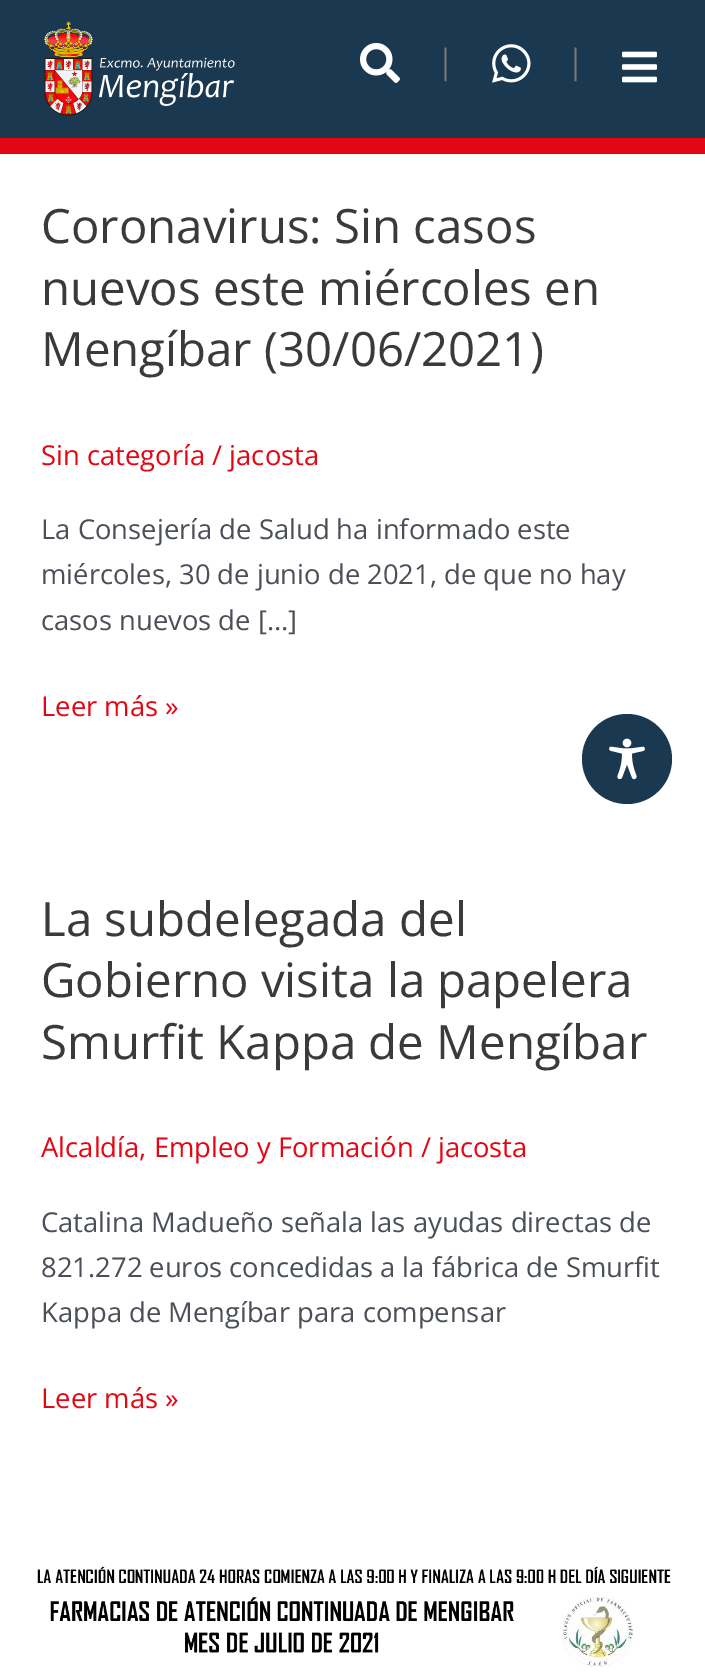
%!PS
<< /PageSize [705 1675] >> setpagedevice
/rgb { dup -16 bitshift 255 div exch dup -8 bitshift 255 and 255 div exch 255 and 255 div setrgbcolor } def
/font { [ exch dup neg 0 0 3 -1 roll 0 0 ] selectfont } def
/text { moveto show } def
/circle { newpath 0 360 arc closepath } def
/picture { 5 dict begin { /h /w /y /x /name } { exch def } forall
  gsave x y translate w h scale
  w h 8 [w 0 0 h 0 0] name (r) file false 3 colorimage grestore end } def
0 1675 translate 1 -1 scale
4 setmiterlimit
/s1 { /Roboto-Light 40 font 16#7A7A7A rgb } def
/s2 { /OpenSans-Regular 47.4 font 16#3A3A3A rgb } def
/s3 { /OpenSans-Regular 27.4 font 16#E30613 rgb } def
/s4 { /OpenSans-Regular 27.4 font 16#4B4F58 rgb } def
16#FFFFFF rgb
0 0 705 1675 rectfill
16#1A3850 rgb
0 0 705 138 rectfill
16#E30613 rgb
0 138 705 16 rectfill
(pic1.raw) 44 21 191 95 picture
(pic2.raw) 360 43 40 40 picture
s1
(|) 441 76 text
(pic3.raw) 492 44 39 39 picture
(|) 571 76 text
(pic4.raw) 622 51 35 32 picture
s2
(Coronavirus: Sin casos) 41 243 text
(nuevos este miércoles en) 41 305 text
(Mengíbar \(30/06/2021\)) 41 366 text
s3
(Sin categoría / jacosta) 41 465 text
s4
(La Consejería de Salud ha informado este) 41 539 text
(miércoles, 30 de junio de 2021, de que no hay) 41 584 text
(casos nuevos de […]) 41 630 text
s3
(Leer más ») 41 716 text
s2
(La subdelegada del) 41 936 text
(Gobierno visita la papelera) 41 997 text
(Smurfit Kappa de Mengíbar) 41 1059 text
s3
(Alcaldía, Empleo y Formación / jacosta) 41 1157 text
s4
(Catalina Madueño señala las ayudas directas de) 41 1232 text
(821.272 euros concedidas a la fábrica de Smurfit) 41 1277 text
(Kappa de Mengíbar para compensar) 41 1322 text
s3
(Leer más ») 41 1408 text
(pic5.raw) 37 1566 634 101 picture
16#1A3850 rgb
627 759 45 circle fill
(pic6.raw) 609 738 36 42 picture
showpage
